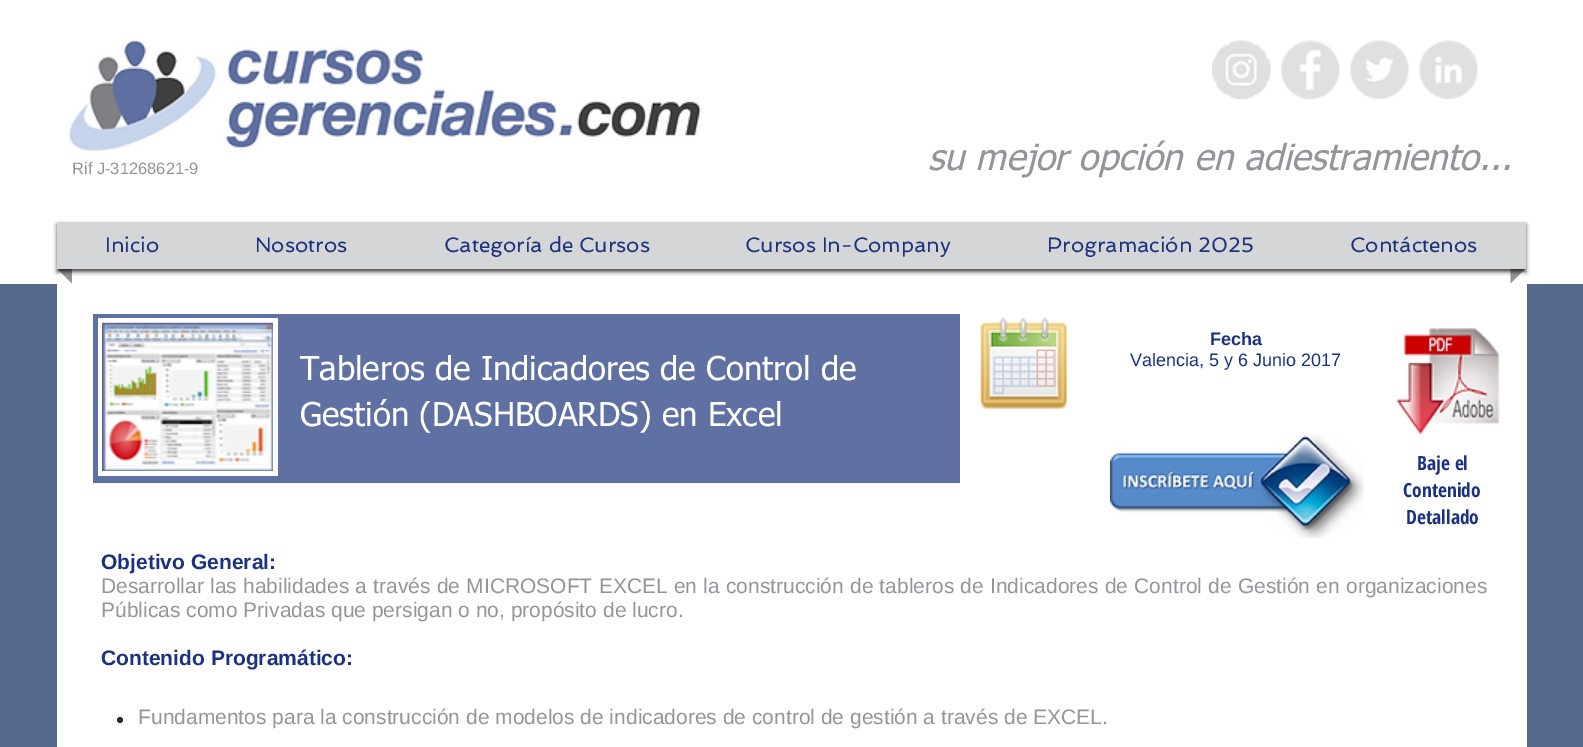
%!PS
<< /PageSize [1583 747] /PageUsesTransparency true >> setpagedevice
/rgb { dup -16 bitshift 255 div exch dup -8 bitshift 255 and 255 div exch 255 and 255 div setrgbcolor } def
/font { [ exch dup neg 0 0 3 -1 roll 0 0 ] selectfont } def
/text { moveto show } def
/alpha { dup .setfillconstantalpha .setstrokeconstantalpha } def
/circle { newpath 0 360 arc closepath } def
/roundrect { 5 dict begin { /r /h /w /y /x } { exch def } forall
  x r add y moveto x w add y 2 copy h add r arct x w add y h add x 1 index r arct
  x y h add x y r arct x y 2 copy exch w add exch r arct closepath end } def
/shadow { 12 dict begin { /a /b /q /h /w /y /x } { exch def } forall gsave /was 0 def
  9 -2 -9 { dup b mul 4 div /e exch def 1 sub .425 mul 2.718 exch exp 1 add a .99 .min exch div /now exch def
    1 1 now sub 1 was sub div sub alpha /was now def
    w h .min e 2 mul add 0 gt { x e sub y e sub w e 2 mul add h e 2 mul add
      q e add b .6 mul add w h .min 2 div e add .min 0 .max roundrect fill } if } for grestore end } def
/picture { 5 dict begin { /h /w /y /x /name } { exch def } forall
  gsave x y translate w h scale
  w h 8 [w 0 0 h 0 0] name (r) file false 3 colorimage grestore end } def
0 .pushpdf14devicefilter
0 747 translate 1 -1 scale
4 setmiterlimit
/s1 { /LiberationSans-Regular 16.5 font 16#94949B rgb } def
/s2 { /tahoma-Italic 36 font 16#94949B rgb } def
/s3 { /Spinnaker-Regular 21 font 16#1C327F rgb } def
/s4 { /tahoma-Regular 33 font 16#FFFFFF rgb } def
/s5 { /LiberationSans-Bold 18 font 16#1C327F rgb } def
/s6 { /LiberationSans-Regular 18 font 16#1C327F rgb } def
/s7 { /OpenSansCondensed-Bold 19.5 font 16#1C327F rgb } def
/s8 { /LiberationSans-Bold 21 font 16#1C327F rgb } def
/s9 { /LiberationSans-Regular 21 font 16#94949B rgb } def
16#556B8D rgb
0 0 1583 747 rectfill
16#FFFFFF rgb
0 0 1583 284 rectfill
(pic1.raw) 69 40 632 112 picture
(pic2.raw) 1212 40 59 59 picture
(pic3.raw) 1281 40 59 59 picture
(pic4.raw) 1350 40 59 59 picture
(pic5.raw) 1419 40 59 59 picture
s1
(Rif J-31268621-9) 72 174 text
s2
(su mejor opción en adiestramiento...) 928 170 text
57 268.5 moveto 72 268.5 lineto 72 283.5 lineto closepath fill
1510.5 268.5 moveto 1525.5 268.5 lineto 1510.5 283.5 lineto closepath fill
16#000000 rgb
57 225 1469 47 0 2 0.7 shadow
16#D4D6D7 rgb
57 222 1469 47 rectfill
s3
(Inicio) 105 252 text
(Nosotros) 255 252 text
(Categoría de Cursos) 444 252 text
(Cursos In-Company) 745 252 text
(Programación 2025) 1047 252 text
(Contáctenos) 1350 252 text
16#FFFFFF rgb
57 284 1470 463 rectfill
16#5F70A2 rgb
93 314 867 169 rectfill
16#FFFFFF rgb
98 318 180 158 rectfill
(pic6.raw) 102 322 171 149 picture
s4
(Tableros de Indicadores de Control de) 300 380 text
(Gestión \(DASHBOARDS\) en Excel) 300 426 text
(pic7.raw) 979 318 89 92 picture
s5
(Fecha) 1210 345 text
s6
(Valencia, 5 y 6 Junio 2017) 1130 366 text
(pic8.raw) 1396 328 104 106 picture
(pic9.raw) 1110 433 254 106 picture
s7
(Baje el) 1417 470 text
(Contenido) 1403 497 text
(Detallado) 1406 524 text
s8
(Objetivo General:) 101 569 text
/LiberationSans-Regular 21 font
16#94949B rgb
101 593 moveto 0.4 0 32 (Desarrollar las habilidades a través de MICROSOFT EXCEL en la construcción de tableros de Indicadores de Control de Gestión en organizaciones) widthshow
(Públicas como Privadas que persigan o no, propósito de lucro.) 101 617 text
s8
(Contenido Programático:) 101 665 text
16#282936 rgb
120 720 3 circle fill
s9
(Fundamentos para la construcción de modelos de indicadores de control de gestión a través de EXCEL.) 138 724 text
.poppdf14devicefilter showpage
